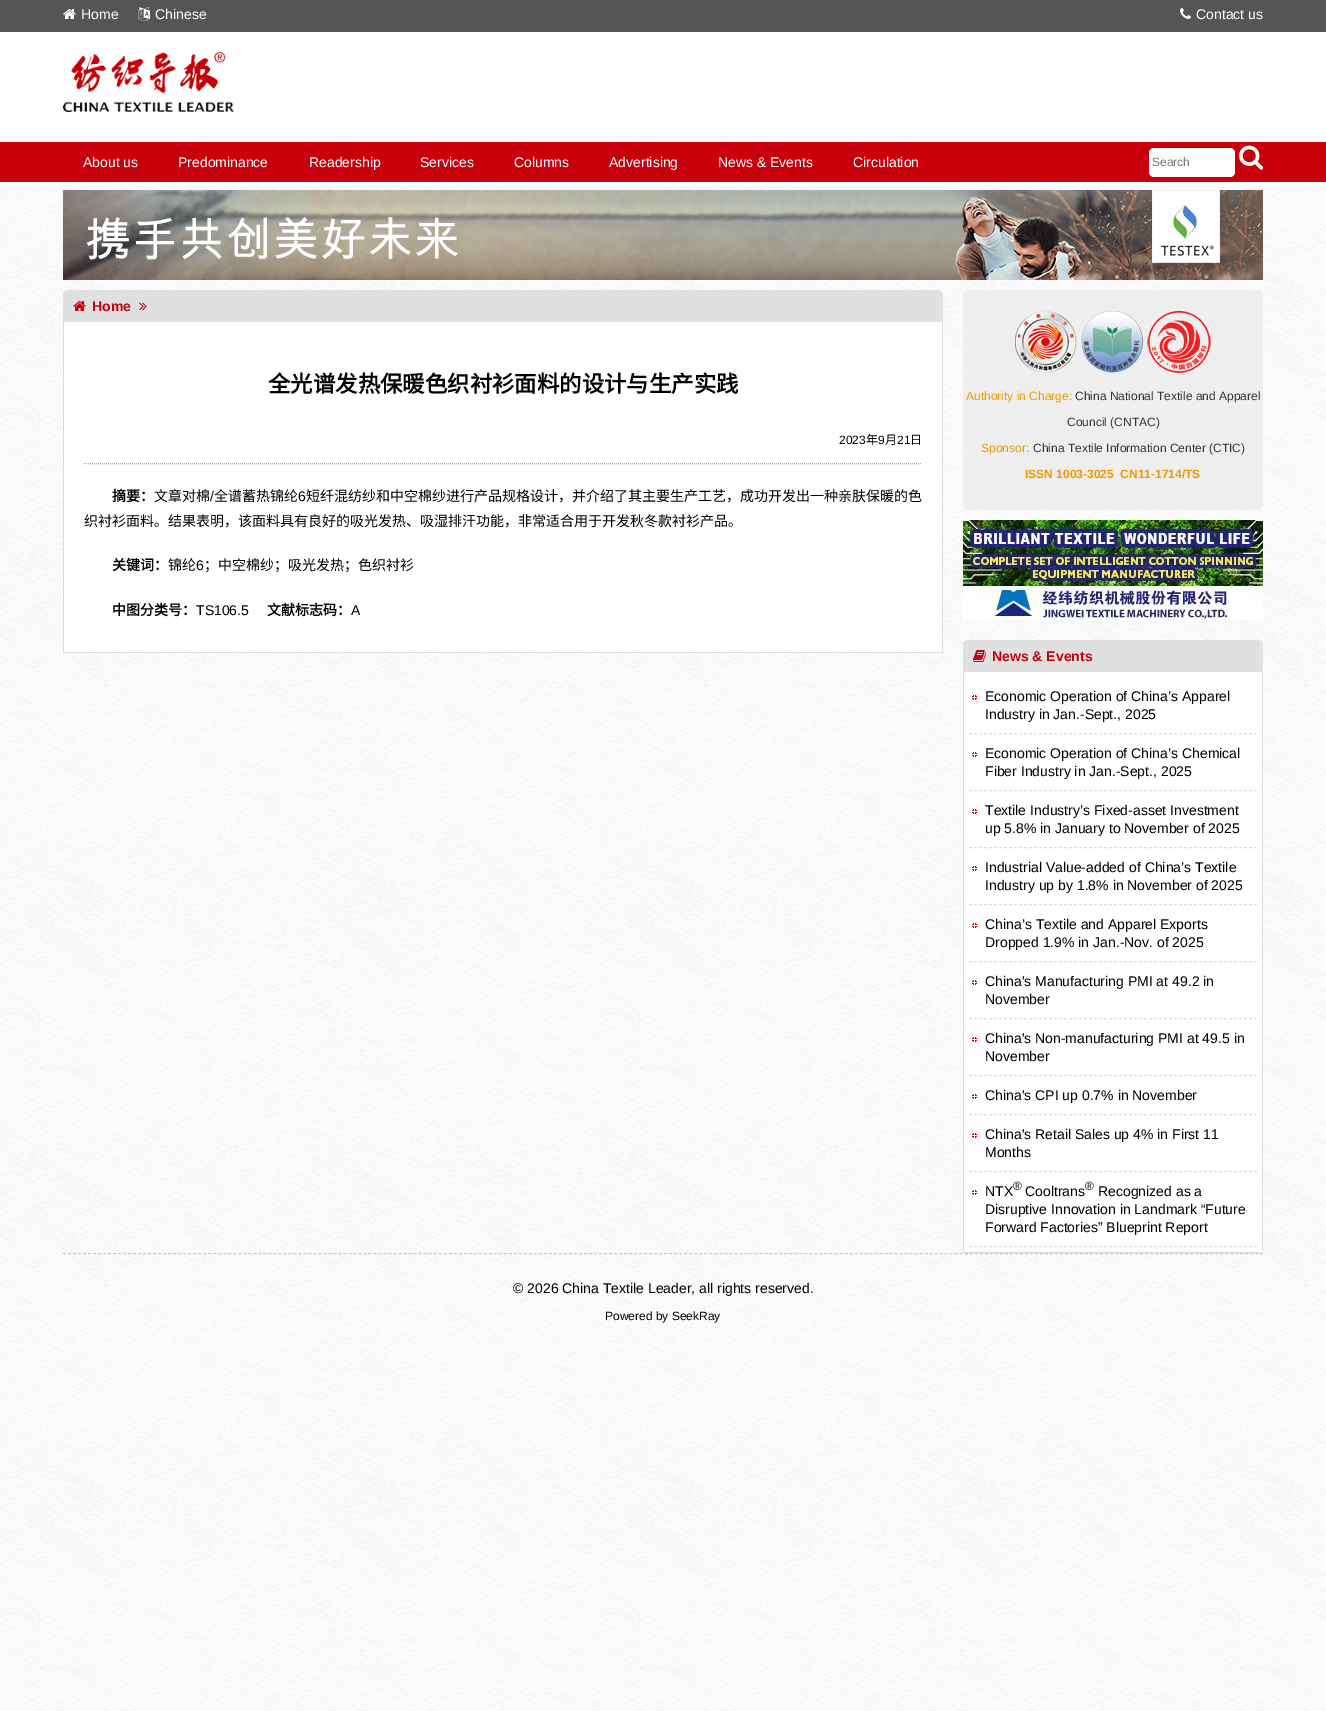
%!PS
<< /PageSize [1326 1711] >> setpagedevice
/rgb { dup -16 bitshift 255 div exch dup -8 bitshift 255 and 255 div exch 255 and 255 div setrgbcolor } def
/font { [ exch dup neg 0 0 3 -1 roll 0 0 ] selectfont } def
/text { moveto show } def
/roundrect { 5 dict begin { /r /h /w /y /x } { exch def } forall
  x r add y moveto x w add y 2 copy h add r arct x w add y h add x 1 index r arct
  x y h add x y r arct x y 2 copy exch w add exch r arct closepath end } def
/picture { 5 dict begin { /h /w /y /x /name } { exch def } forall
  gsave x y translate w h scale
  w h 8 [w 0 0 h 0 0] name (r) file false 3 colorimage grestore end } def
0 1711 translate 1 -1 scale
4 setmiterlimit
/s1 { /LiberationSans-Regular 14 font 16#FFFFFF rgb } def
/s2 { /LiberationSans-Regular 12 font 16#757575 rgb } def
/s3 { /LiberationSans-Bold 14 font 16#C7000B rgb } def
/s4 { /NotoSansCJKSC-Bold 22.4 font 16#000000 rgb } def
/s5 { /LiberationSans-Regular 12 font 16#000000 rgb } def
/s6 { /NotoSansCJKSC-Regular 12 font 16#000000 rgb } def
/s7 { /NotoSansCJKSC-Bold 14 font 16#000000 rgb } def
/s8 { /NotoSansCJKSC-Regular 14 font 16#000000 rgb } def
/s9 { /LiberationSans-Regular 14 font 16#000000 rgb } def
/s10 { /LiberationSans-Regular 12 font 16#EE9900 rgb } def
/s11 { /LiberationSans-Regular 12 font 16#333333 rgb } def
/s12 { /LiberationSans-Bold 12 font 16#EE9900 rgb } def
16#FFFFFF rgb
0 0 1326 1711 rectfill
(pic1.raw) 0 190 1326 1521 picture
16#555555 rgb
0 0 1326 32 rectfill
(pic2.raw) 63 9 13 10 picture
s1
(Home) 81 19 text
(pic3.raw) 138 7 12 14 picture
(Chinese) 155 19 text
(pic4.raw) 1180 8 11 11 picture
(Contact us) 1196 19 text
(pic5.raw) 63 52 171 60 picture
16#C7000B rgb
0 142 1326 40 rectfill
s1
(About us) 83 167 text
(Predominance) 178 167 text
(Readership) 309 167 text
(Services) 420 167 text
(Columns) 514 167 text
(Advertising) 609 167 text
(News & Events) 718 167 text
(Circulation) 853 167 text
1149 148 86 29 5 roundrect fill
s2
(Search) 1152 166 text
(pic6.raw) 1239 145 25 25 picture
(pic7.raw) 63 190 1200 90 picture
16#E0E0E0 rgb
69 290 moveto 937 290 lineto 940.5 290 943 292.5 943 296 curveto 943 322 lineto 63 322 lineto 63 296 lineto 63 292.5 65.5 290 69 290 curveto closepath fill
(pic8.raw) 73 301 13 10 picture
s3
(Home) 92 311 text
(pic9.raw) 139 302 8 9 picture
16#FFFFFF rgb
64 322 878 330 rectfill
16#DDDDDD rgb
942 322 1 331 rectfill
63 652 880 1 rectfill
63 322 1 331 rectfill
16#AAAAAA rgb
[1 1] 0 setdash
84 463.5 moveto 922 463.5 lineto stroke
s4
(全光谱发热保暖色织衬衫面料的设计与生产实践) 268 392 text
s5
(2023) 839 444 text
s6
(年) 866 444 text
s5
(9) 878 444 text
s6
(月) 885 444 text
s5
(21) 897 444 text
s6
(日) 910 444 text
s7
(摘要：) 112 501 text
s8
(文章对棉) 154 501 text
s9
(/) 210 501 text
s8
(全谱蓄热锦纶) 214 501 text
s9
(6) 298 501 text
s8
(短纤混纺纱和中空棉纱进行产品规格设计，并介绍了其主要生产工艺，成功开发出一种亲肤保暖的色) 306 501 text
(织衬衫面料。结果表明，该面料具有良好的吸光发热、吸湿排汗功能，非常适合用于开发秋冬款衬衫产品。) 84 526 text
s7
(关键词：) 112 570 text
s8
(锦纶) 168 570 text
s9
(6) 196 570 text
s8
(；中空棉纱；吸光发热；色织衬衫) 204 570 text
s7
(中图分类号：) 112 615 text
s9
(TS106.5) 196 615 text
s7
(文献标志码：) 267 615 text
s9
(A) 351 615 text
16#EEEEEE rgb
963 290 300 220 6 roundrect fill
(pic10.raw) 1015 310 63 63 picture
(pic11.raw) 1081 310 63 64 picture
(pic12.raw) 1147 311 64 62 picture
s10
(Authority in Charge:) 966 400 text
s11
(China National Textile and Apparel) 1075 400 text
(Council \(CNTAC\)) 1067 426 text
s10
(Sponsor:) 981 452 text
s11
(China Textile Information Center \(CTIC\)) 1033 452 text
s12
(ISSN 1003-3025  CN11-1714/TS) 1025 478 text
(pic13.raw) 963 520 300 100 picture
16#E0E0E0 rgb
969 640 moveto 1257 640 lineto 1260.5 640 1263 642.5 1263 646 curveto 1263 672 lineto 963 672 lineto 963 646 lineto 963 642.5 965.5 640 969 640 curveto closepath fill
(pic14.raw) 973 650 13 12 picture
s3
(News & Events) 992 661 text
16#FFFFFF rgb
964 672 298 580 rectfill
16#DDDDDD rgb
1262 672 1 581 rectfill
963 1252 300 1 rectfill
963 672 1 581 rectfill
(pic15.raw) 972 695 5 5 picture
[3 2] 0 setdash
969 733.5 moveto 1257 733.5 lineto stroke
s9
(Economic Operation of China’s Apparel) 985 701 text
(Industry in Jan.-Sept., 2025) 985 719 text
(pic15.raw) 972 752 5 5 picture
16#DDDDDD rgb
969 790.5 moveto 1257 790.5 lineto stroke
s9
(Economic Operation of China’s Chemical) 985 758 text
(Fiber Industry in Jan.-Sept., 2025) 985 776 text
(pic15.raw) 972 809 5 5 picture
16#DDDDDD rgb
969 847.5 moveto 1257 847.5 lineto stroke
s9
(Textile Industry’s Fixed-asset Investment) 985 815 text
(up 5.8% in January to November of 2025) 985 833 text
(pic15.raw) 972 866 5 5 picture
16#DDDDDD rgb
969 904.5 moveto 1257 904.5 lineto stroke
s9
(Industrial Value-added of China’s Textile) 985 872 text
(Industry up by 1.8% in November of 2025) 985 890 text
(pic15.raw) 972 923 5 5 picture
16#DDDDDD rgb
969 961.5 moveto 1257 961.5 lineto stroke
s9
(China’s Textile and Apparel Exports) 985 929 text
(Dropped 1.9% in Jan.-Nov. of 2025) 985 947 text
(pic15.raw) 972 980 5 5 picture
16#DDDDDD rgb
969 1018.5 moveto 1257 1018.5 lineto stroke
s9
(China's Manufacturing PMI at 49.2 in) 985 986 text
(November) 985 1004 text
(pic15.raw) 972 1037 5 5 picture
16#DDDDDD rgb
969 1075.5 moveto 1257 1075.5 lineto stroke
s9
(China's Non-manufacturing PMI at 49.5 in) 985 1043 text
(November) 985 1061 text
(pic15.raw) 972 1094 5 5 picture
16#DDDDDD rgb
969 1114.5 moveto 1257 1114.5 lineto stroke
s9
(China's CPI up 0.7% in November) 985 1100 text
(pic15.raw) 972 1133 5 5 picture
16#DDDDDD rgb
969 1171.5 moveto 1257 1171.5 lineto stroke
s9
(China's Retail Sales up 4% in First 11) 985 1139 text
(Months) 985 1157 text
(pic15.raw) 972 1190 5 5 picture
16#DDDDDD rgb
969 1246.5 moveto 1257 1246.5 lineto stroke
s9
(NTX) 985 1196 text
s5
(®) 1013 1190 text
s9
(Cooltrans) 1025 1196 text
s5
(®) 1085 1190 text
s9
(Recognized as a) 1098 1196 text
(Disruptive Innovation in Landmark “Future) 985 1214 text
(Forward Factories” Blueprint Report) 985 1232 text
16#CCCCCC rgb
[3 2.01] 0 setdash
63 1253.5 moveto 1263 1253.5 lineto stroke
s9
(© 2026 China Textile Leader, all rights reserved.) 513 1293 text
s5
(Powered by SeekRay) 605 1320 text
showpage
